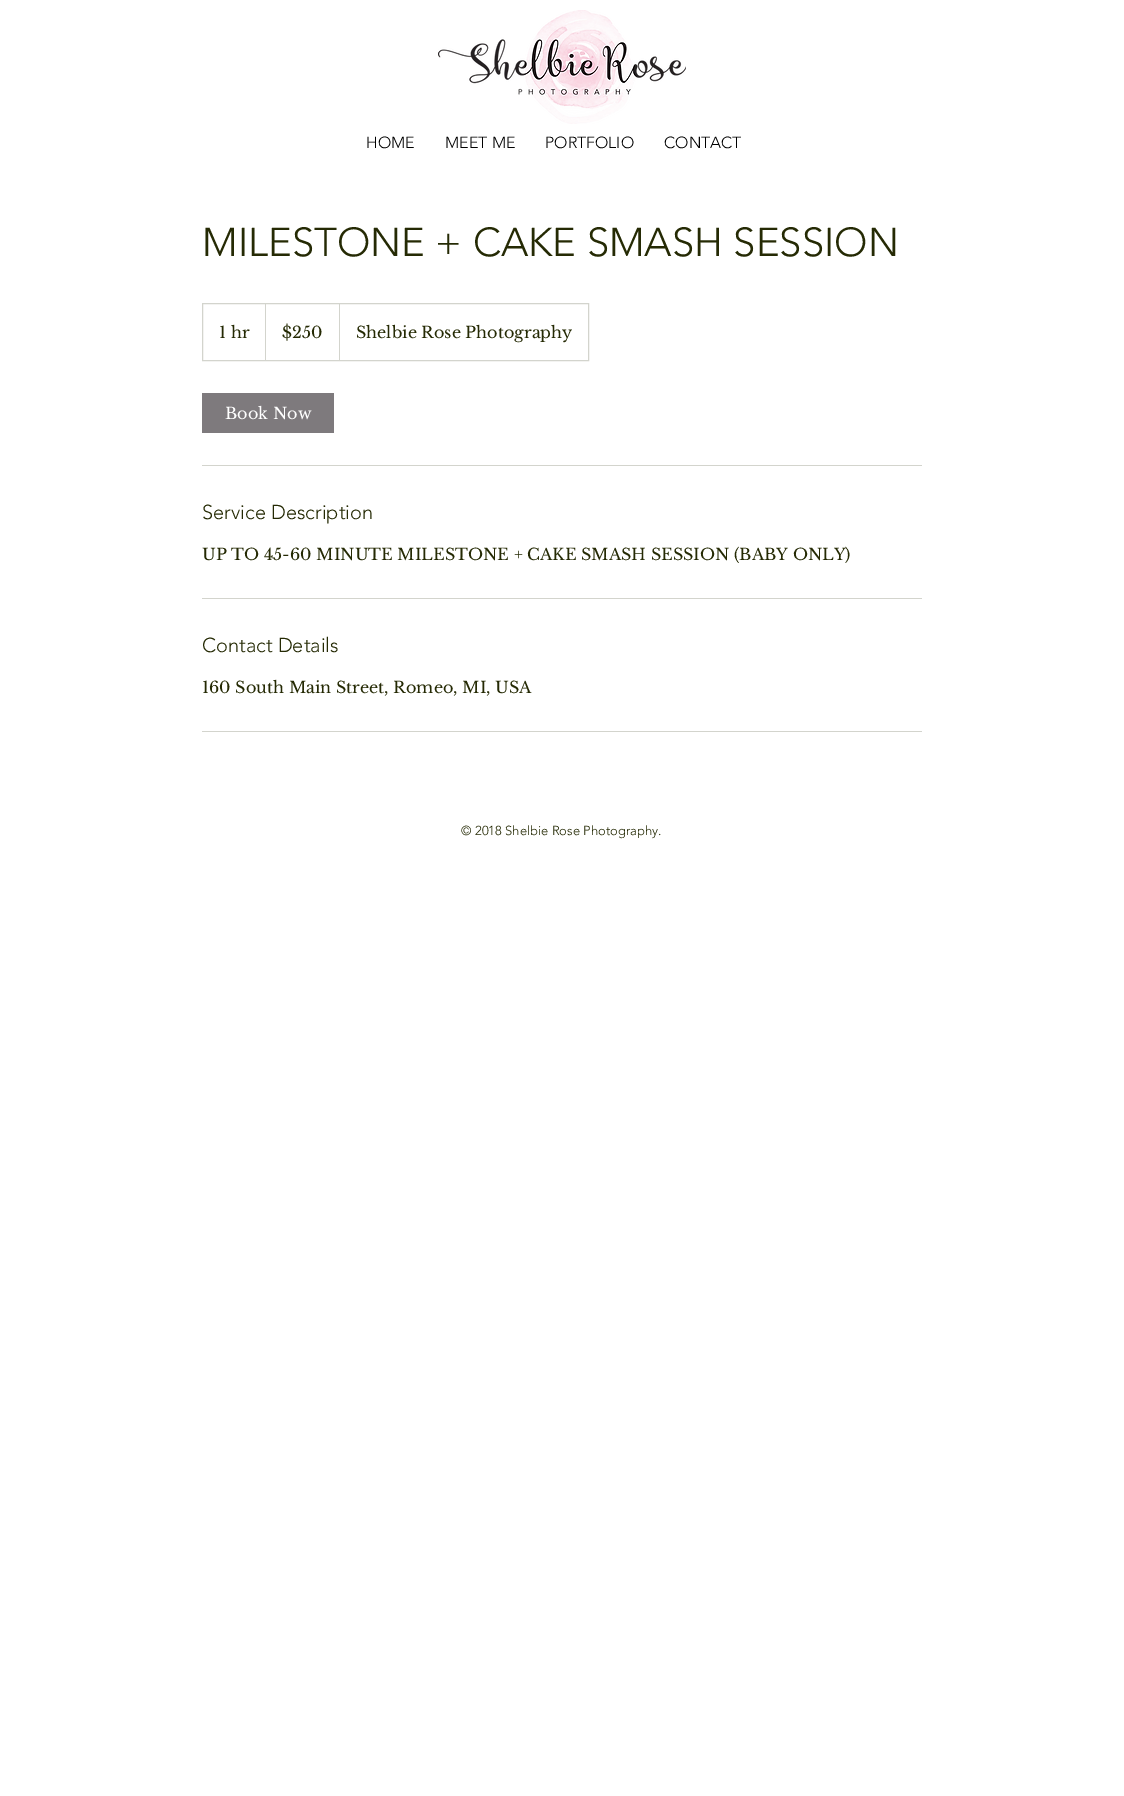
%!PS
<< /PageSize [1124 1796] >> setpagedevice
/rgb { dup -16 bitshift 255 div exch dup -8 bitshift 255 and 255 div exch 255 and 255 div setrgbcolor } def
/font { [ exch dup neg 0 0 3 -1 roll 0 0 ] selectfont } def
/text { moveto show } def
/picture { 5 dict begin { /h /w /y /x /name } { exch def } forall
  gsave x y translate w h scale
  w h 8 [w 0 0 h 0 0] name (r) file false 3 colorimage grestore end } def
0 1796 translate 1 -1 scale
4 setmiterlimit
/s1 { /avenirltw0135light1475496-Light 16 font 16#000000 rgb } def
/s2 { /avenirltw0135light1475496-Light 40 font 16#252A04 rgb } def
/s3 { /LibreBaskerville-Regular 16 font 16#252A04 rgb } def
/s4 { /LibreBaskerville-Regular 16 font 16#FFFFFF rgb } def
/s5 { /avenirltw0135light1475496-Light 20 font 16#252A04 rgb } def
/s6 { /avenirltw0135light1475496-Light 13 font 16#252A04 rgb } def
16#FFFFFF rgb
0 0 1124 1796 rectfill
(pic1.raw) 438 10 248 114 picture
s1
(HOME) 366 148 text
(MEET ME) 445 148 text
(PORTFOLIO) 545 148 text
(CONTACT) 664 148 text
s2
(MILESTONE + CAKE SMASH SESSION) 202 256 text
16#D3D4CD rgb
202.5 303.5 386 57 rectstroke
s3
(1 hr) 219 338 text
16#D3D4CD rgb
265 360 moveto 265 303 lineto 266 304 lineto 266 360 lineto closepath fill
s3
($250) 282 338 text
16#D3D4CD rgb
339 360 moveto 339 303 lineto 340 304 lineto 340 360 lineto closepath fill
s3
(Shelbie Rose Photography) 356 338 text
16#7E7A7D rgb
202 393 132 40 rectfill
s4
(Book Now) 225 419 text
16#D3D4CD rgb
202 465 720 1 rectfill
s5
(Service Description) 202 519 text
s3
(UP TO 45-60 MINUTE MILESTONE + CAKE SMASH SESSION \(BABY ONLY\)) 202 560 text
16#D3D4CD rgb
202 598 720 1 rectfill
s5
(Contact Details) 202 652 text
s3
(160 South Main Street, Romeo, MI, USA) 202 693 text
16#D3D4CD rgb
202 731 720 1 rectfill
s6
(© 2018 Shelbie Rose Photography.) 461 835 text
showpage
